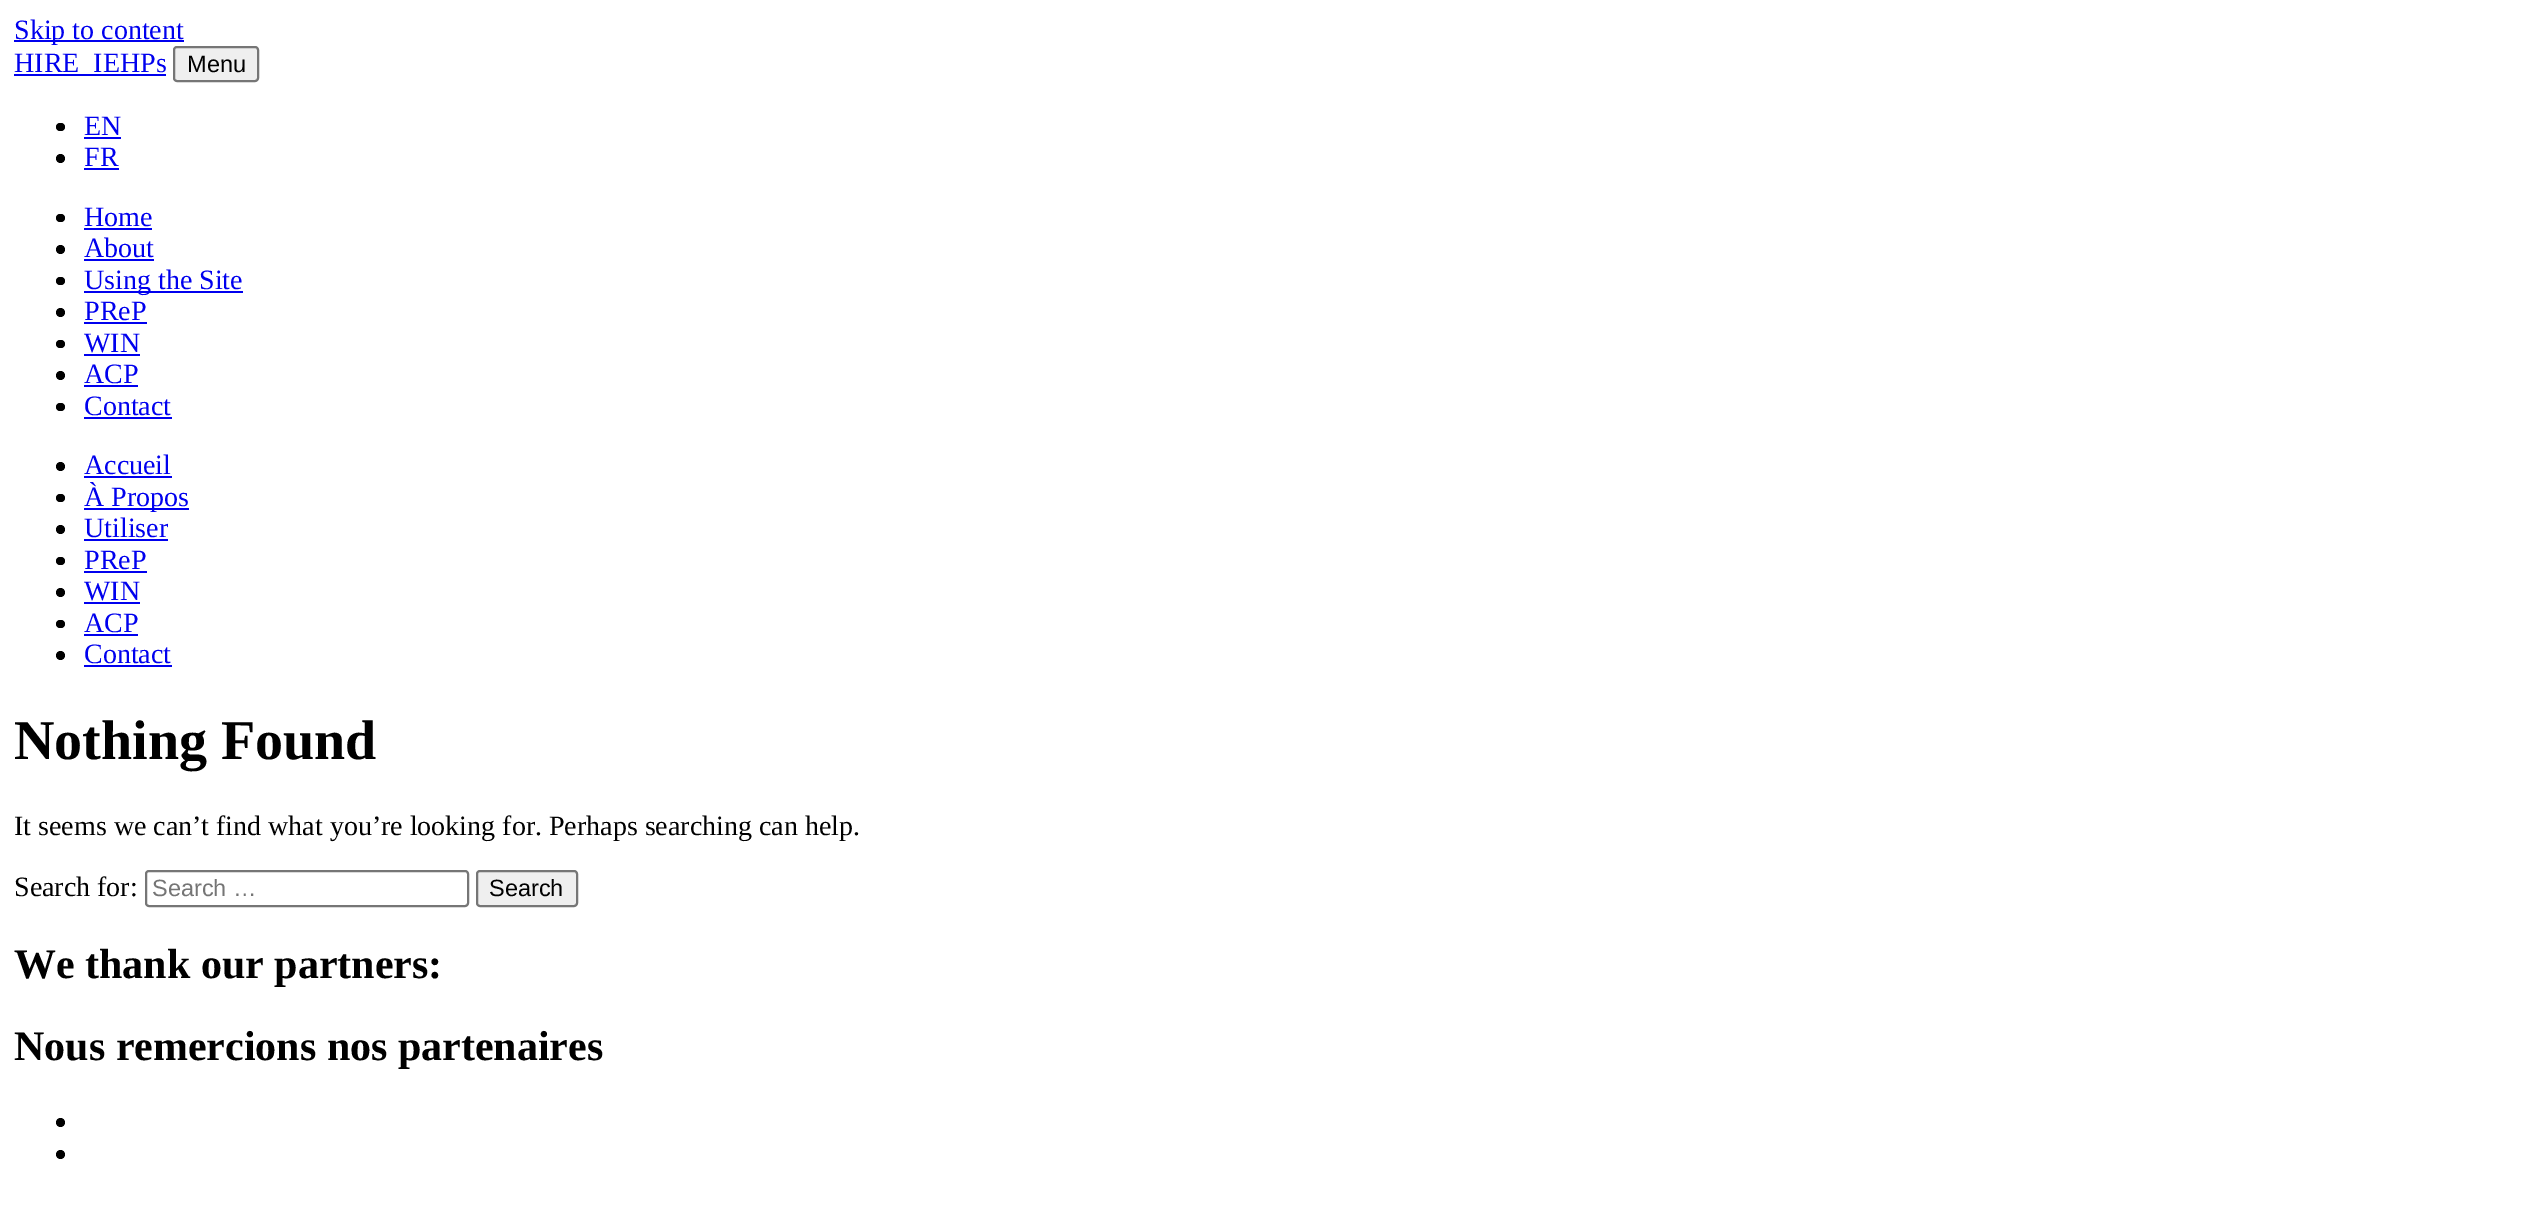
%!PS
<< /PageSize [2521 1217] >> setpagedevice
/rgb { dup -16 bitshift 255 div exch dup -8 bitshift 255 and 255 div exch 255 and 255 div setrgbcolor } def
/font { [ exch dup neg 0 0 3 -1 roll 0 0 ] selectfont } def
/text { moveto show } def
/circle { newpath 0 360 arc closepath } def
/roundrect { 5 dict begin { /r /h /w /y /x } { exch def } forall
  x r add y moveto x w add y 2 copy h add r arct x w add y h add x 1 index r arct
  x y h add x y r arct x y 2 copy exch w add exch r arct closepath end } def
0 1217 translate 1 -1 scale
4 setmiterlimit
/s1 { /LiberationSerif-Regular 28 font 16#0000EE rgb } def
/s2 { /LiberationSans-Regular 23.5 font 16#000000 rgb } def
/s3 { /LiberationSerif-Bold 56 font 16#000000 rgb } def
/s4 { /LiberationSerif-Regular 28 font 16#000000 rgb } def
/s5 { /LiberationSans-Regular 23.5 font 16#757575 rgb } def
/s6 { /LiberationSerif-Bold 42 font 16#000000 rgb } def
16#FFFFFF rgb
0 0 2521 1217 rectfill
16#0000EE rgb
14 40 170 2 rectfill
s1
(Skip to content) 14 39 text
(HIRE  IEHPs) 14 72 text
14 74 152 2 rectfill
16#EFEFEF rgb
174 47 84 34 3 roundrect gsave fill grestore
16#767676 rgb
2 setlinewidth
stroke
s2
(Menu) 187 72 text
56 123 9 8 4 roundrect fill
s1
(EN) 84 135 text
84 137 37 2 rectfill
16#000000 rgb
60.5 158.5 4.5 circle fill
s1
(FR) 84 166 text
84 168 35 2 rectfill
16#000000 rgb
56 214 9 8 4 roundrect fill
s1
(Home) 84 226 text
84 228 68 2 rectfill
16#000000 rgb
60.5 249.5 4.5 circle fill
s1
(About) 84 257 text
84 259 70 2 rectfill
16#000000 rgb
56 277 9 8 4 roundrect fill
16#0000EE rgb
84 291 159 2 rectfill
(Using the Site) 84 289 text
16#000000 rgb
60.5 312.5 4.5 circle fill
s1
(PReP) 84 320 text
84 322 63 2 rectfill
16#000000 rgb
56 340 9 8 4 roundrect fill
s1
(WIN) 84 352 text
84 354 56 2 rectfill
16#000000 rgb
60.5 375.5 4.5 circle fill
s1
(ACP) 84 383 text
84 385 54 2 rectfill
16#000000 rgb
56 403 9 8 4 roundrect fill
s1
(Contact) 84 415 text
84 417 88 2 rectfill
16#000000 rgb
60.5 466.5 4.5 circle fill
s1
(Accueil) 84 474 text
84 476 88 2 rectfill
16#000000 rgb
56 494 9 8 4 roundrect fill
16#0000EE rgb
84 508 105 2 rectfill
(À Propos) 84 506 text
16#000000 rgb
60.5 529.5 4.5 circle fill
s1
(Utiliser) 84 537 text
84 539 84 2 rectfill
16#000000 rgb
56 557 9 8 4 roundrect fill
s1
(PReP) 84 569 text
84 571 63 2 rectfill
16#000000 rgb
60.5 592.5 4.5 circle fill
s1
(WIN) 84 600 text
84 602 56 2 rectfill
16#000000 rgb
56 620 9 8 4 roundrect fill
s1
(ACP) 84 632 text
84 634 54 2 rectfill
16#000000 rgb
60.5 655.5 4.5 circle fill
s1
(Contact) 84 663 text
84 665 88 2 rectfill
s3
(Nothing Found) 14 759 text
s4
(It seems we can’t find what you’re looking for. Perhaps searching can help.) 14 835 text
(Search for:) 14 896 text
16#767676 rgb
146 871 322 35 3 roundrect stroke
s5
(Search …) 152 896 text
16#EFEFEF rgb
477 871 100 35 3 roundrect gsave fill grestore
16#767676 rgb
stroke
s2
(Search) 489 896 text
s6
(We thank our partners:) 14 978 text
(Nous remercions nos partenaires) 14 1060 text
60.5 1122.5 4.5 circle fill
60.5 1154.5 4.5 circle fill
showpage
